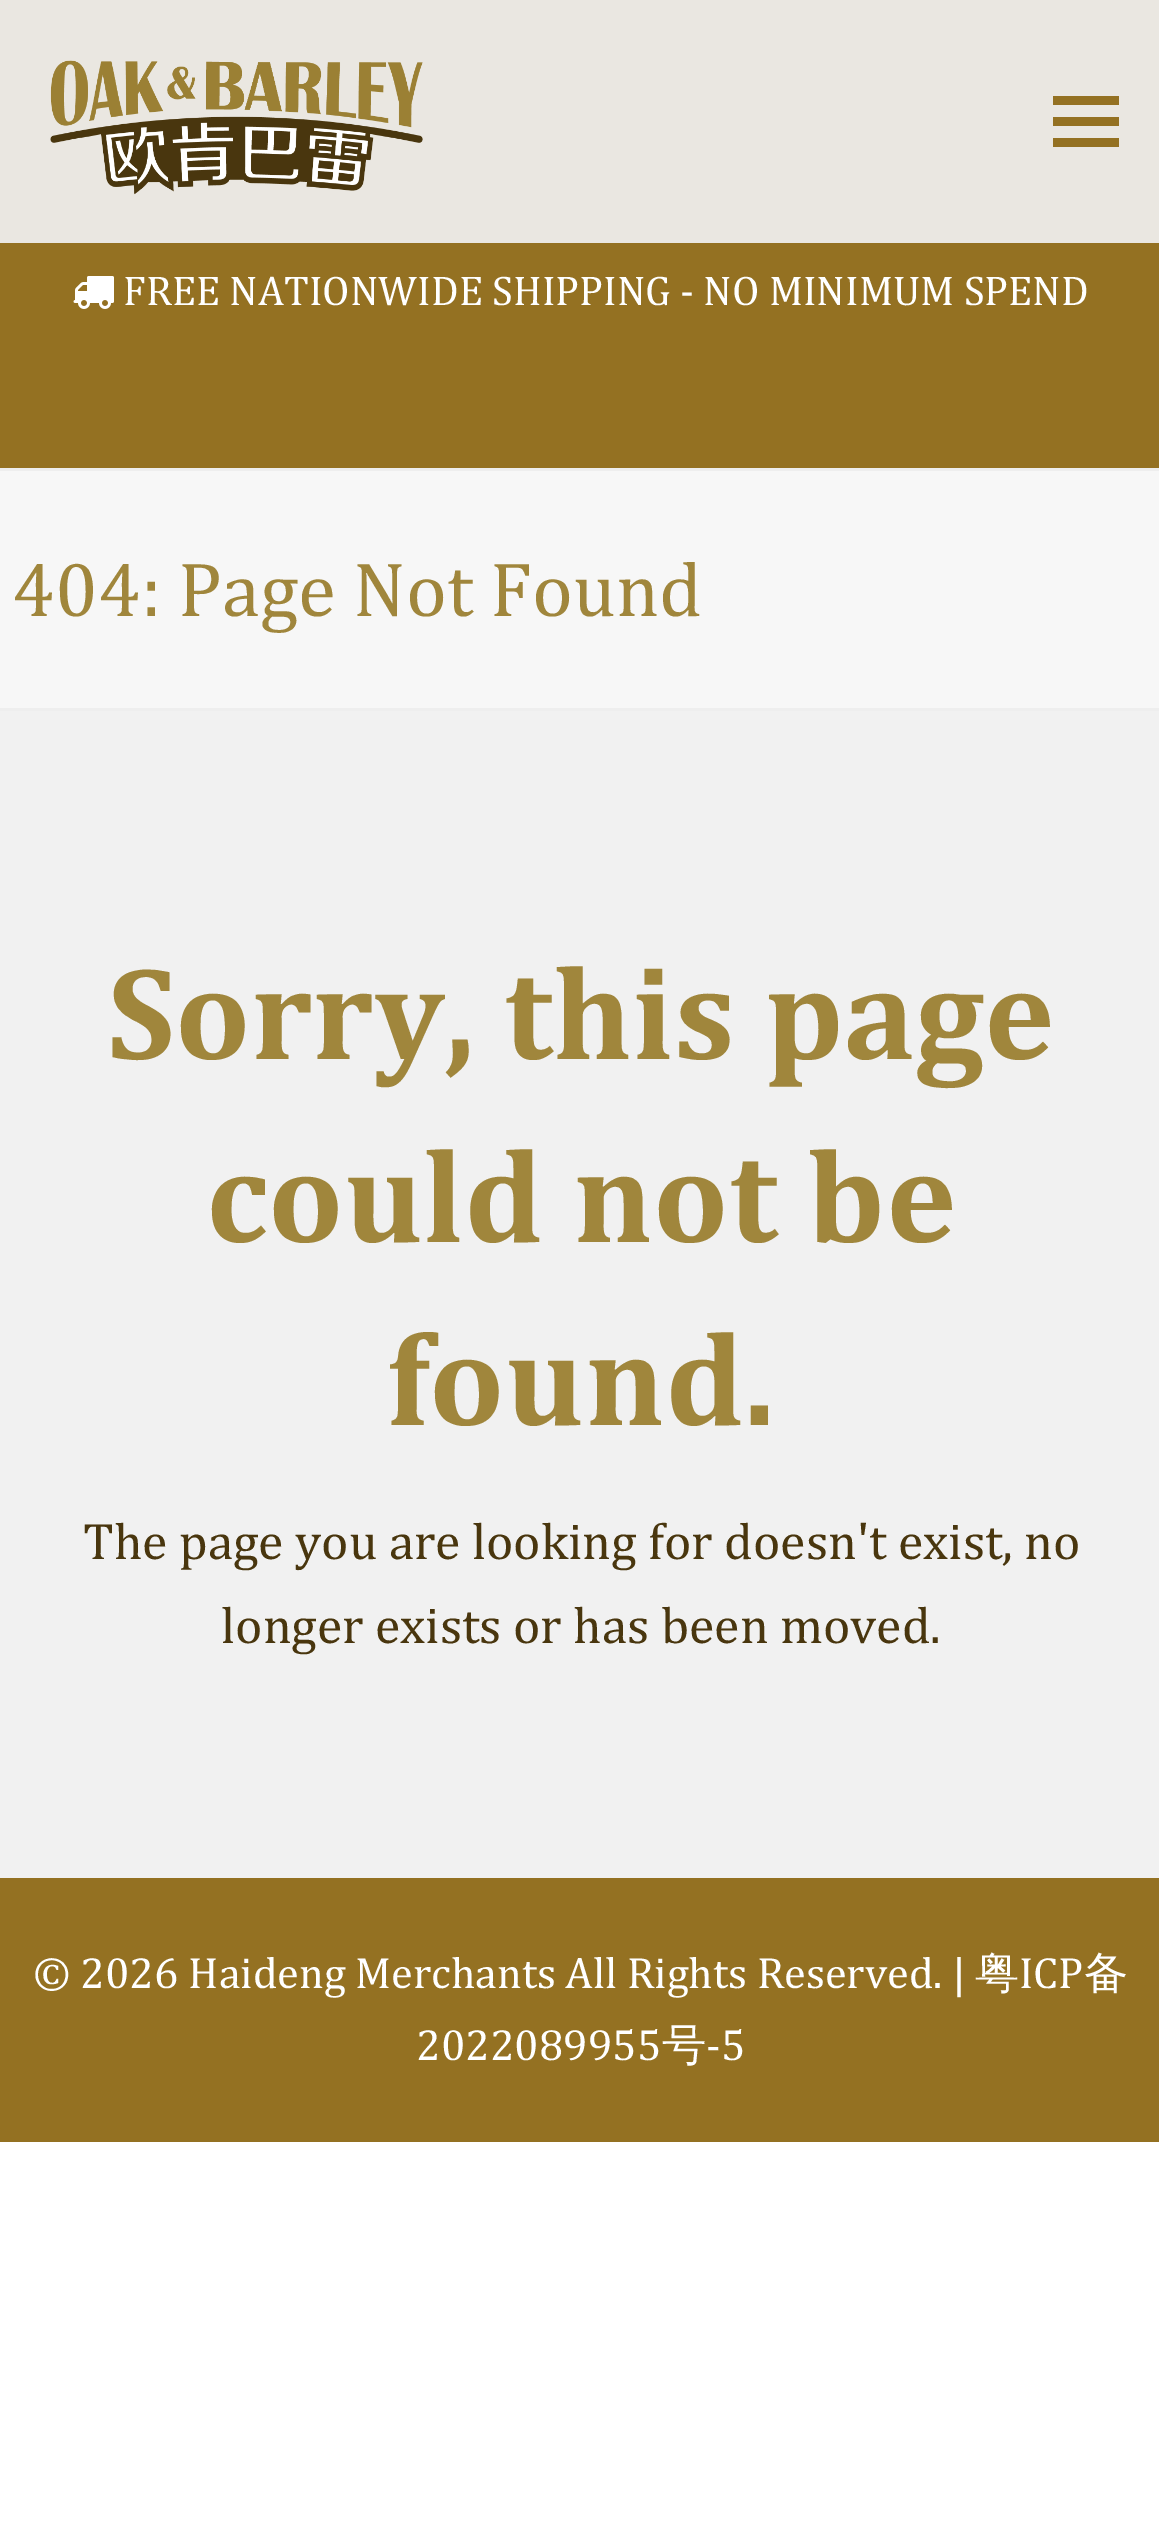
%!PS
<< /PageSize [1159 2548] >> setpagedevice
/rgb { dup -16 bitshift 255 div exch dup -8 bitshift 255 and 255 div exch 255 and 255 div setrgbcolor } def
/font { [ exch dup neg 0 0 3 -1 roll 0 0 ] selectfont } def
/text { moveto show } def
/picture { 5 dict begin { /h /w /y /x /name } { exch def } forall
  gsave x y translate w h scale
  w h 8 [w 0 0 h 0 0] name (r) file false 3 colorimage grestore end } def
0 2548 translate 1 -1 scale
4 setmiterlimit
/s1 { /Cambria-Regular 42 font 16#FFFFFF rgb } def
/s2 { /Cambria-Regular 77.5 font 16#A0863C rgb } def
/s3 { /Cambria-Bold 133 font 16#A0863C rgb } def
/s4 { /Cambria-Regular 51.75 font 16#49360E rgb } def
/s5 { /Cambria-Regular 44.3 font 16#FFFFFF rgb } def
/s6 { /WenQuanYiZenHei-Medium 44.3 font 16#FFFFFF rgb } def
16#FFFFFF rgb
0 0 1159 2548 rectfill
16#EAE7E1 rgb
0 0 1159 243 rectfill
(pic1.raw) 50 60 373 135 picture
16#947122 rgb
1053 117 66 9 rectfill
1053 96 66 9 rectfill
1053 138 66 9 rectfill
0 243 1159 225 rectfill
(pic2.raw) 73 276 41 33 picture
s1
(FREE NATIONWIDE SHIPPING - NO MINIMUM SPEND) 123 305 text
16#F1F1F1 rgb
0 711 1159 1167 rectfill
16#F7F7F7 rgb
0 471 1159 237 rectfill
16#EEEEEE rgb
0 468 1159 3 rectfill
0 708 1159 3 rectfill
s2
(404: Page Not Found) 12 616 text
s3
(Sorry, this page) 107 1059 text
(could not be) 206 1242 text
(found.) 386 1425 text
s4
(The page you are looking for doesn't exist, no) 83 1559 text
(longer exists or has been moved.) 221 1643 text
16#947122 rgb
0 1878 1159 264 rectfill
s5
(© 2026 Haideng Merchants All Rights Reserved. |) 33 1988 text
s6
(粤) 975 1988 text
s5
(ICP) 1019 1988 text
s6
(备) 1084 1988 text
s5
(2022089955) 416 2060 text
s6
(号) 662 2060 text
s5
(-5) 706 2060 text
showpage
